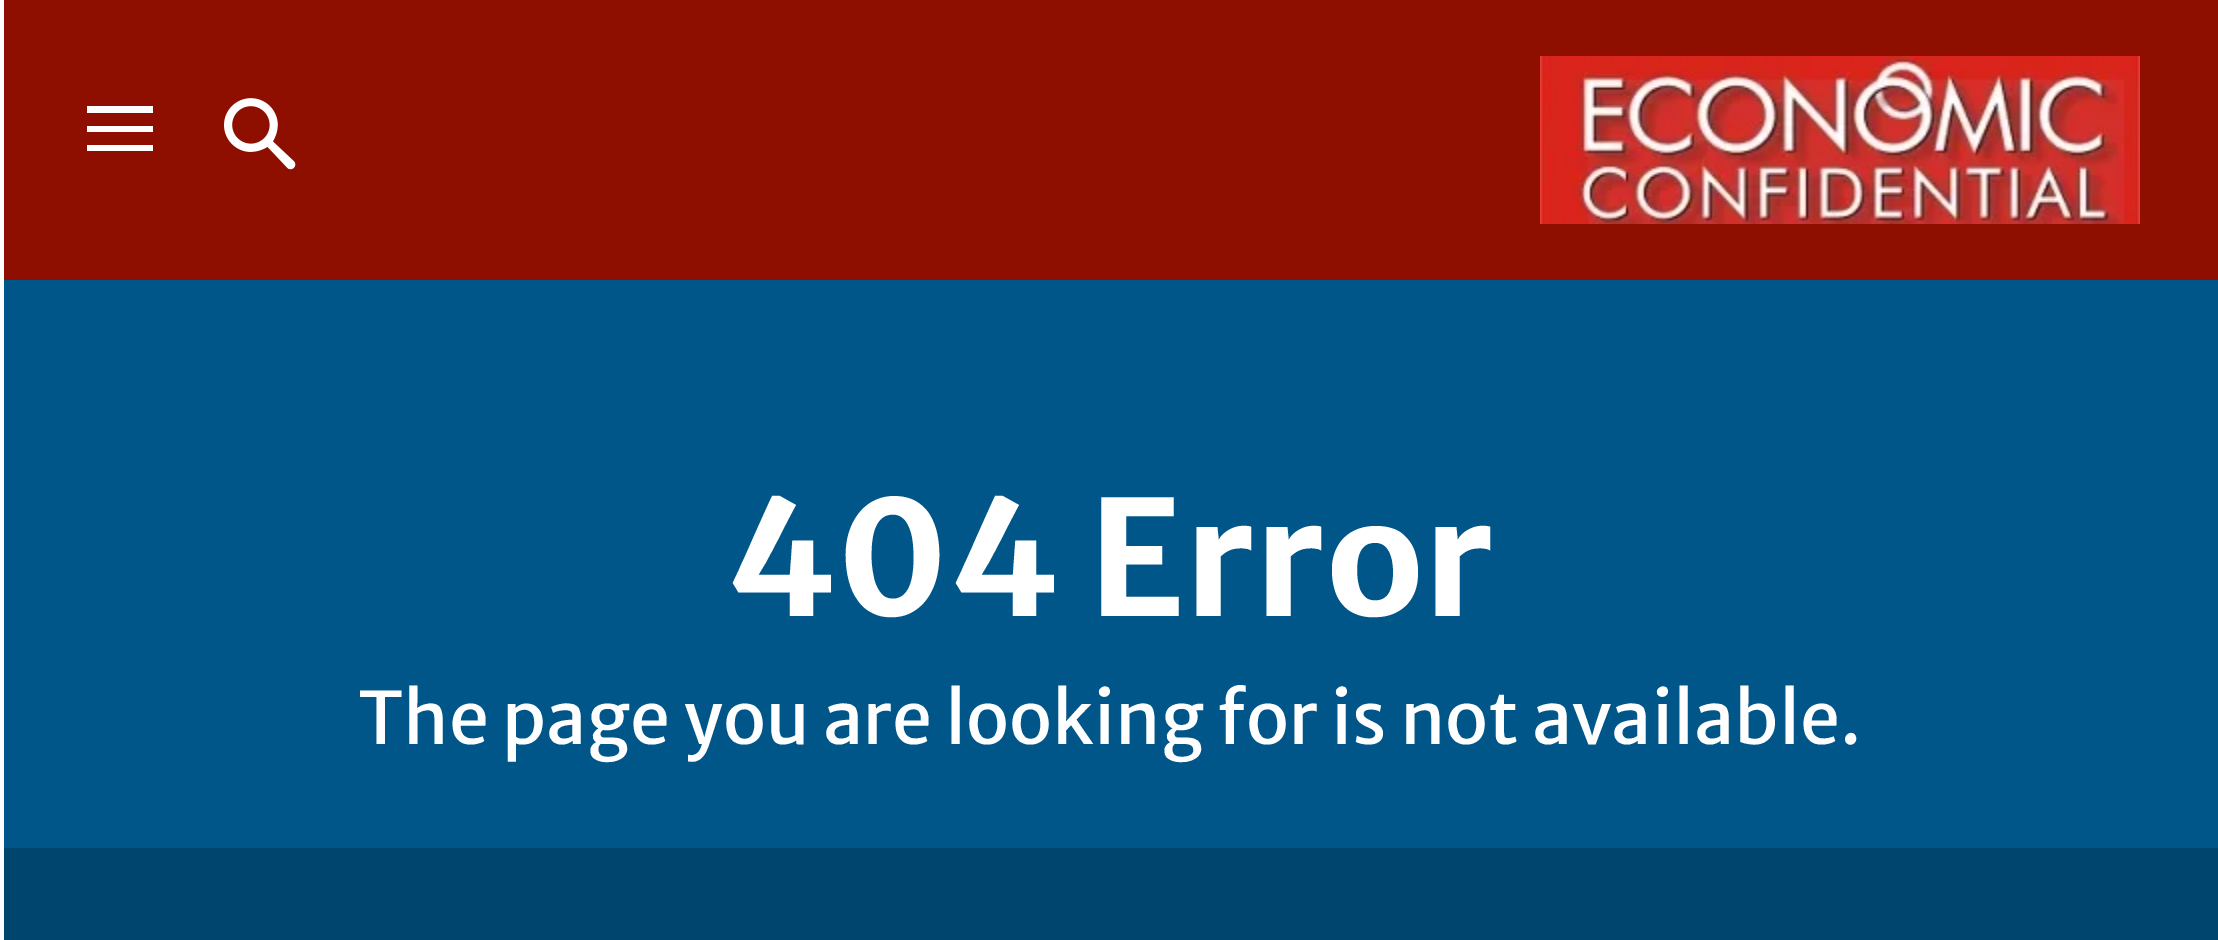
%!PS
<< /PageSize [2218 940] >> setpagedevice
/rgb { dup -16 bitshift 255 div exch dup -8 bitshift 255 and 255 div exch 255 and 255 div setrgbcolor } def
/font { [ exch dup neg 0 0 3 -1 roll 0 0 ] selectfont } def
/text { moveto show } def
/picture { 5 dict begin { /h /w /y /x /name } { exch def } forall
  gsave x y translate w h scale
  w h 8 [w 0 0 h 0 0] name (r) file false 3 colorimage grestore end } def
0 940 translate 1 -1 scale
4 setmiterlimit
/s1 { /MerriweatherSans-Bold 160 font 16#FFFFFF rgb } def
/s2 { /MerriweatherSans-Regular 72 font 16#FFFFFF rgb } def
16#FFFFFF rgb
0 0 2218 940 rectfill
16#8E0E00 rgb
4 0 2214 280 rectfill
16#FFFFFF rgb
153 113 moveto 87 113 lineto 87 106 lineto 153 106 lineto closepath 153 132 moveto 87 132 lineto 87 126 lineto 153 126 lineto closepath 153 151 moveto 87 151 lineto 87 145 lineto 153 145 lineto closepath fill
(pic1.raw) 224 98 72 72 picture
(pic2.raw) 1540 56 600 168 picture
16#005689 rgb
4 280 2214 568 rectfill
s1
(404 Error) 726 616 text
s2
(The page you are looking for is not available.) 358 744 text
16#00456E rgb
4 848 2214 92 rectfill
showpage
